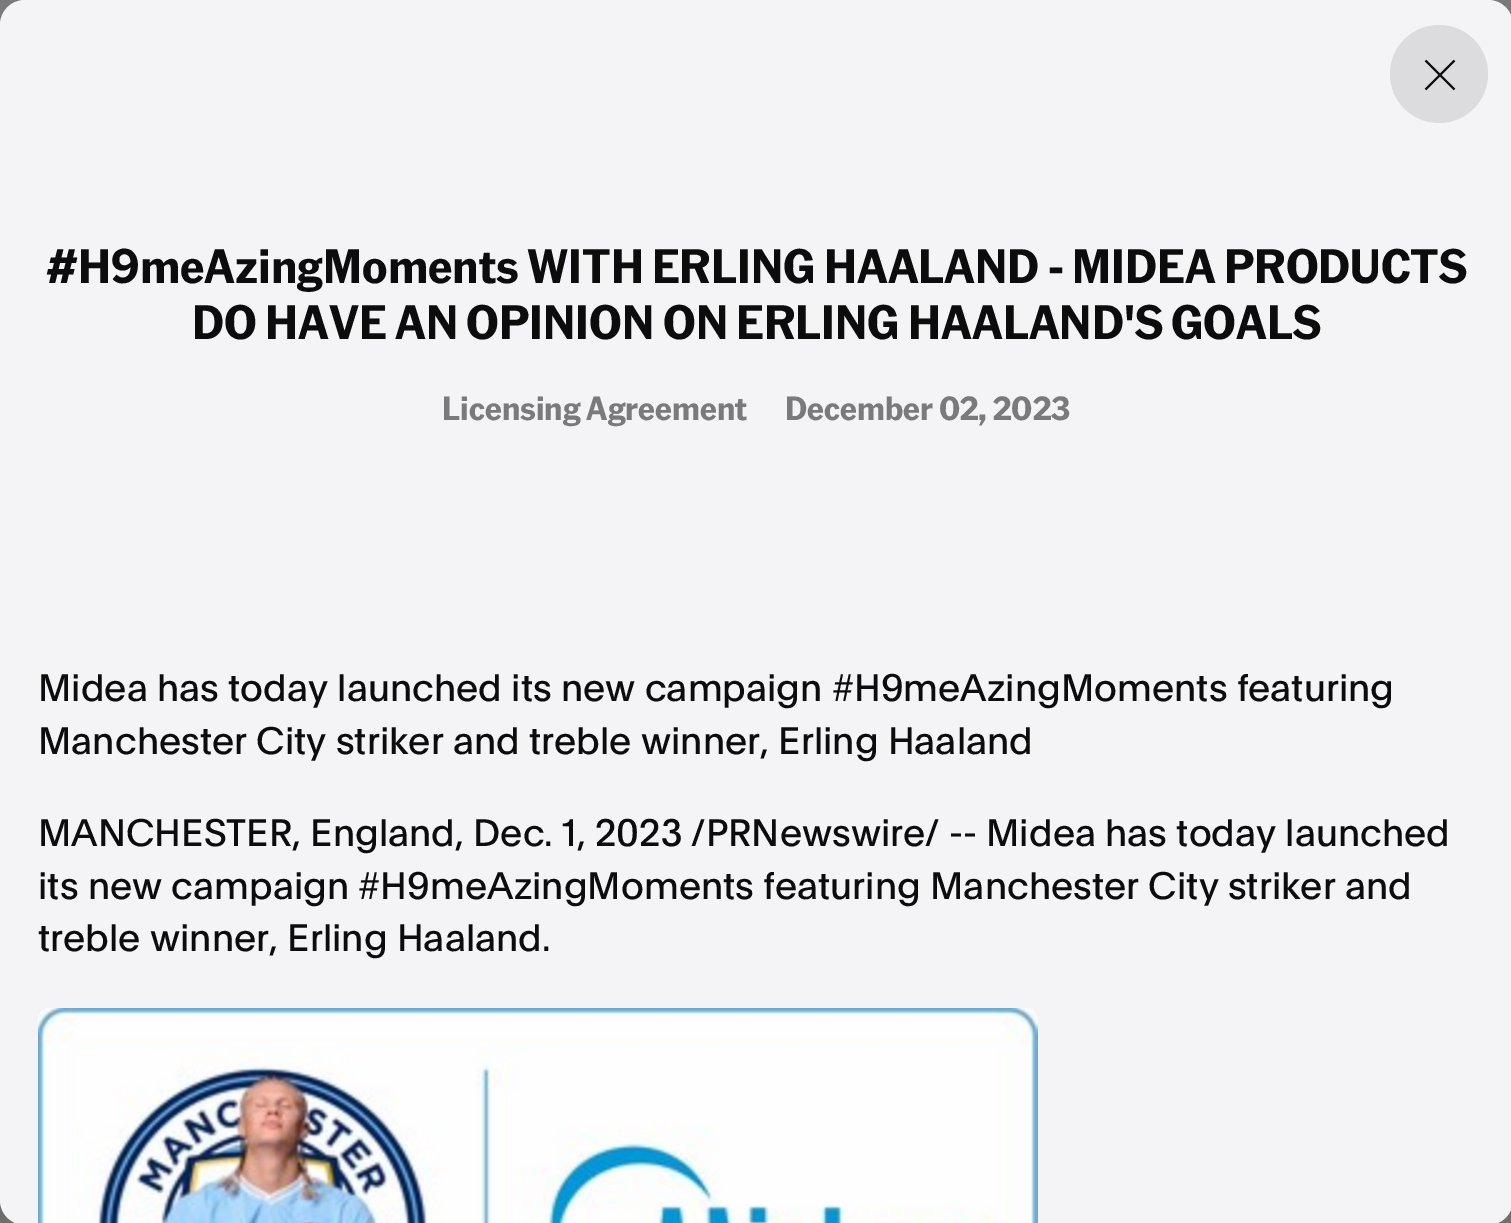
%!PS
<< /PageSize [1511 1223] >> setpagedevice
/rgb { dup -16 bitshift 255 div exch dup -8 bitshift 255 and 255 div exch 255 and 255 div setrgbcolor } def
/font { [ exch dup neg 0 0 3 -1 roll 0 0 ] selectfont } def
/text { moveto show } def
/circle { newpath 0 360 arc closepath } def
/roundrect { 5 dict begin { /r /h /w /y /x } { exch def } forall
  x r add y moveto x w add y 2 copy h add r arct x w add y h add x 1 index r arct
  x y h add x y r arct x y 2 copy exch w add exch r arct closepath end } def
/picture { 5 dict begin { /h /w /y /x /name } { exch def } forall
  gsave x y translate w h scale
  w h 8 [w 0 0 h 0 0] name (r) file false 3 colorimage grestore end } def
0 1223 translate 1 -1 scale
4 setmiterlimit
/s1 { /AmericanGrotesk-Bold 46.9 font 16#0C0C0C rgb } def
/s2 { /AmericanGrotesk-Bold 32.5 font 16#7A7A7C rgb } def
/s3 { /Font-Regular 37.5 font 16#0C0C0C rgb } def
16#7A7A7C rgb
0 0 1511 1223 rectfill
16#6E6E6F rgb
0 1200 1511 23 rectfill
16#F4F4F7 rgb
0 0 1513 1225 25 roundrect fill
16#DCDCDE rgb
1439 74 49 circle fill
16#0C0C0C rgb
2.1 setlinewidth
1 setlinejoin
1454.5 60.5 moveto 1425.5 89.5 lineto 1454.5 89.5 moveto 1425.5 60.5 lineto stroke
s1
(#H9meAzingMoments WITH ERLING HAALAND - MIDEA PRODUCTS) 46 283 text
(DO HAVE AN OPINION ON ERLING HAALAND'S GOALS) 192 339 text
s2
(Licensing Agreement) 442 420 text
(December 02, 2023) 785 420 text
s3
(Midea has today launched its new campaign #H9meAzingMoments featuring) 38 701 text
(Manchester City striker and treble winner, Erling Haaland) 38 754 text
(MANCHESTER, England, Dec. 1, 2023 /PRNewswire/ -- Midea has today launched) 38 846 text
(its new campaign #H9meAzingMoments featuring Manchester City striker and) 38 899 text
(treble winner, Erling Haaland.) 38 951 text
(pic1.raw) 38 1008 1000 215 picture
showpage
